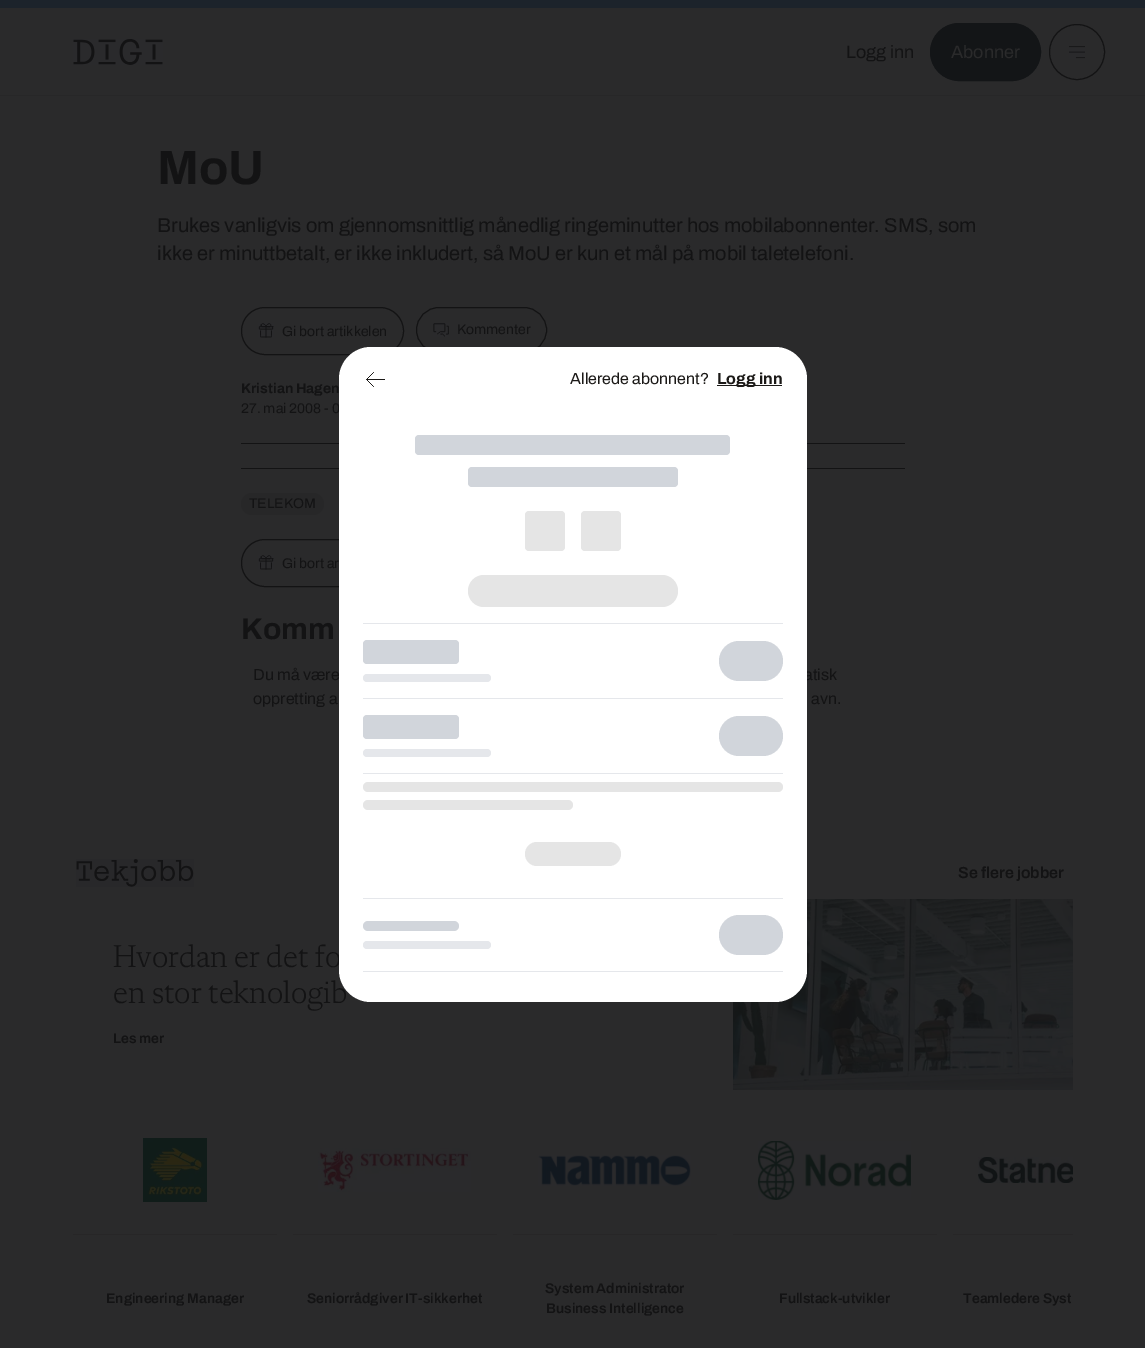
%!PS
<< /PageSize [1145 1348] >> setpagedevice
/rgb { dup -16 bitshift 255 div exch dup -8 bitshift 255 and 255 div exch 255 and 255 div setrgbcolor } def
/font { [ exch dup neg 0 0 3 -1 roll 0 0 ] selectfont } def
/text { moveto show } def
/circle { newpath 0 360 arc closepath } def
/roundrect { 5 dict begin { /r /h /w /y /x } { exch def } forall
  x r add y moveto x w add y 2 copy h add r arct x w add y h add x 1 index r arct
  x y h add x y r arct x y 2 copy exch w add exch r arct closepath end } def
/picture { 5 dict begin { /h /w /y /x /name } { exch def } forall
  gsave x y translate w h scale
  w h 8 [w 0 0 h 0 0] name (r) file false 3 colorimage grestore end } def
0 1348 translate 1 -1 scale
4 setmiterlimit
/s1 { /Archivo-Regular 18 font 16#131314 rgb } def
/s2 { /Archivo-Regular 18 font 16#2A2A2B rgb } def
/s3 { /Archivo-Bold 48 font 16#131314 rgb } def
/s4 { /Archivo-Regular 20 font 16#131314 rgb } def
/s5 { /Archivo-Regular 14 font 16#131314 rgb } def
/s6 { /Archivo-Bold 14 font 16#131314 rgb } def
/s7 { /Archivo-Bold 30 font 16#131314 rgb } def
/s8 { /Archivo-Regular 16 font 16#131314 rgb } def
/s9 { /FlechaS-Light 32 font 16#131314 rgb } def
/s10 { /Archivo-Regular 16 font 16#1B1917 rgb } def
/s11 { /Archivo-Bold 16 font 16#1B1917 rgb } def
/s12 { /Archivo-SemiBold 16 font 16#131314 rgb } def
/s13 { /Archivo-SemiBold 14 font 16#131314 rgb } def
16#2A2A2B rgb
0 0 1145 1348 rectfill
16#1C232B rgb
0 0 1145 8 rectfill
16#272728 rgb
0 95 1145 1 rectfill
(pic1.raw) 73 39 90 26 picture
s1
(Logg inn) 846 58 text
16#131517 rgb
930.5 23.5 110 57 28.5 roundrect gsave fill grestore
stroke
s2
(Abonner) 951 58 text
16#131314 rgb
1077 52 27.5 circle stroke
(pic2.raw) 1069 46 16 13 picture
s3
(MoU) 157 184 text
s4
(Brukes vanligvis om gjennomsnittlig månedlig ringeminutter hos mobilabonnenter. SMS, som) 157 232 text
(ikke er minuttbetalt, er ikke inkludert, så MoU er kun et mål på mobil taletelefoni.) 157 260 text
241 443 664 1 rectfill
241.5 307.5 162 47 23.5 roundrect stroke
(pic3.raw) 258 323 16 15 picture
s5
(Gi bort artikkelen) 282 336 text
416.5 307.5 130 45 22.5 roundrect stroke
(pic4.raw) 433 323 16 14 picture
(Kommenter) 457 334 text
s6
(Kristian Hagen) 241 393 text
s5
(27. mai 2008 - 0) 241 413 text
241 468 664 1 rectfill
16#272728 rgb
241 493 83 22 11 roundrect fill
s5
(TELEKOM) 249 508 text
241.5 539.5 162 47 23.5 roundrect stroke
(pic3.raw) 258 555 16 15 picture
(Gi bort ar) 282 568 text
s7
(Komm) 241 639 text
s8
(Du må være) 253 680 text
(atisk) 804 680 text
(oppretting a) 253 704 text
(avn.) 811 704 text
s9
(Hvordan er det fo) 113 967 text
(en stor teknologib) 113 1003 text
(pic7.raw) 733 899 340 191 picture
16#FFFFFF rgb
339 347 468 655 32 roundrect fill
(pic5.raw) 366 372 19 15 picture
s10
(Allerede abonnent?) 570 384 text
717 385 65 1 rectfill
s11
(Logg inn) 717 384 text
16#D1D5DB rgb
415 435 315 20 4 roundrect fill
468 467 210 20 4 roundrect fill
16#E5E5E5 rgb
525 511 40 40 4 roundrect fill
581 511 40 40 4 roundrect fill
468 575 210 32 16 roundrect fill
16#E5E7EB rgb
363 623 420 1 rectfill
16#D1D5DB rgb
363 640 96 24 4 roundrect fill
16#E5E7EB rgb
363 674 128 8 4 roundrect fill
16#D1D5DB rgb
719 641 64 40 20 roundrect fill
16#E5E7EB rgb
363 698 420 1 rectfill
363 773 420 1 rectfill
16#D1D5DB rgb
363 715 96 24 4 roundrect fill
16#E5E7EB rgb
363 749 128 8 4 roundrect fill
16#D1D5DB rgb
719 716 64 40 20 roundrect fill
16#E5E5E5 rgb
363 782 420 10 5 roundrect fill
363 800 210 10 5 roundrect fill
525 842 96 24 12 roundrect fill
16#E5E7EB rgb
363 898 420 1 rectfill
363 971 420 1 rectfill
16#D1D5DB rgb
363 921 96 10 5 roundrect fill
16#E5E7EB rgb
363 941 128 8 4 roundrect fill
16#D1D5DB rgb
719 915 64 40 20 roundrect fill
(pic6.raw) 76 859 118 28 picture
s12
(Se flere jobber) 958 878 text
s13
(Les mer) 113 1043 text
(pic8.raw) 143 1138 64 64 picture
16#272627 rgb
73 1234 204 1 rectfill
s13
(Engineering Manager) 106 1303 text
(pic9.raw) 318 1148 153 44 picture
16#272627 rgb
293 1234 204 1 rectfill
s13
(Seniorrådgiver IT-sikkerhet) 307 1303 text
(pic10.raw) 538 1155 153 31 picture
16#272627 rgb
513 1234 204 1 rectfill
s13
(System Administrator) 545 1293 text
(Business Intelligence) 546 1313 text
(pic11.raw) 758 1141 153 59 picture
16#272627 rgb
733 1234 204 1 rectfill
s13
(Fullstack-utvikler) 779 1303 text
(pic12.raw) 978 1157 95 26 picture
16#272627 rgb
953 1234 120 1 rectfill
s13
(Teamledere Syst) 963 1303 text
showpage
